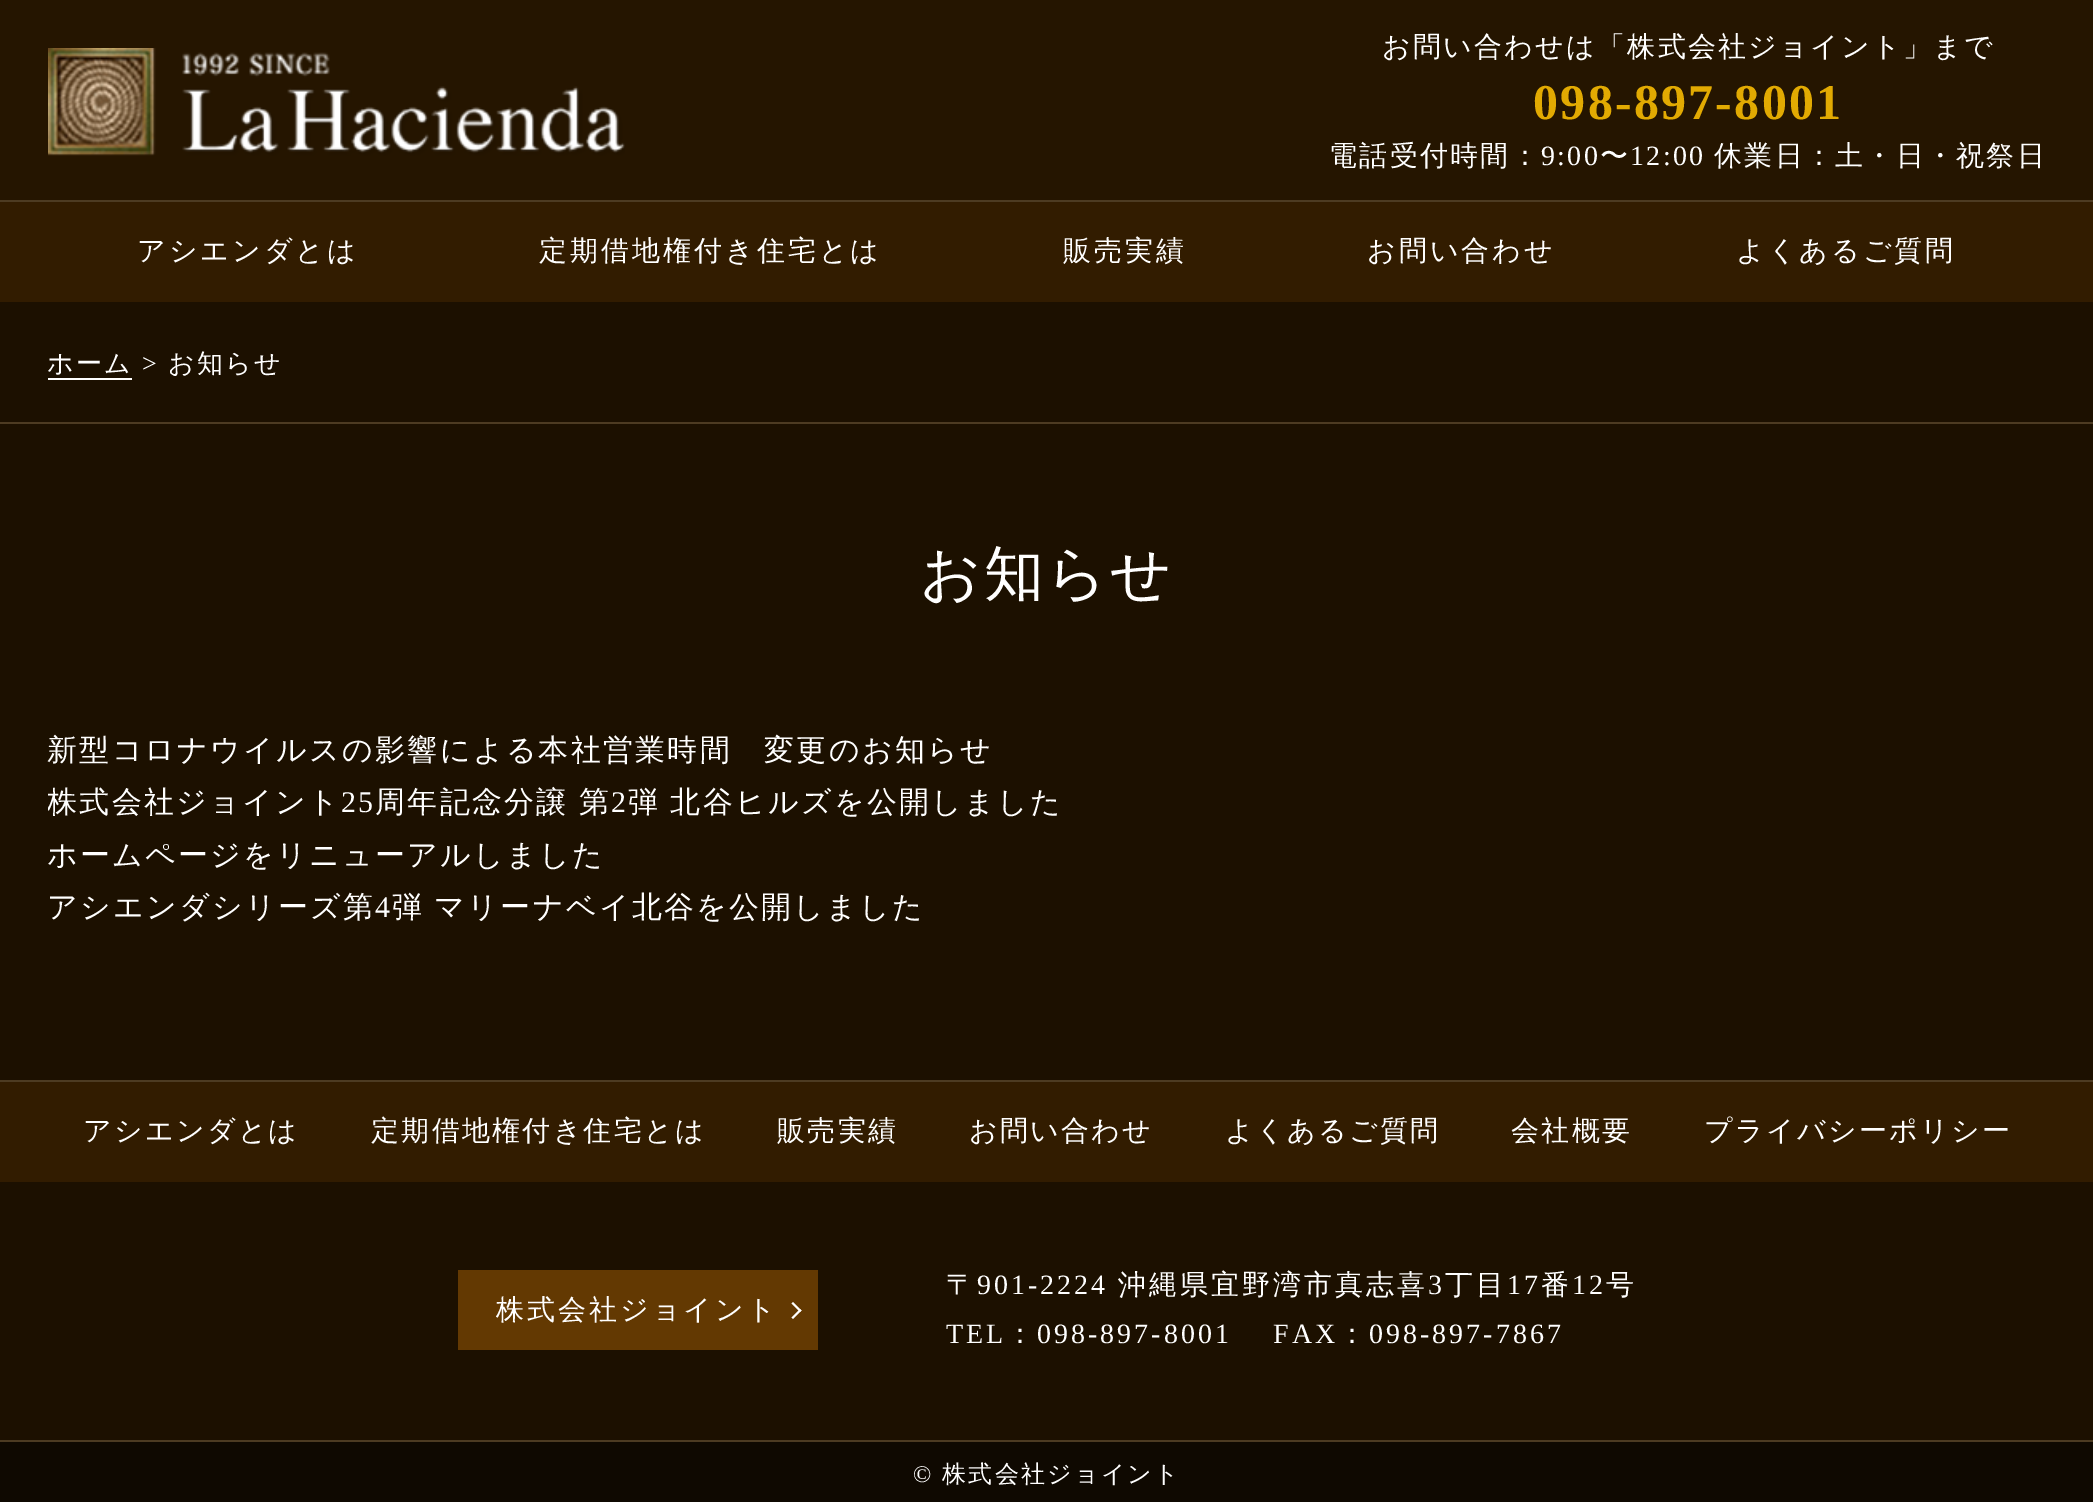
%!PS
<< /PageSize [2093 1502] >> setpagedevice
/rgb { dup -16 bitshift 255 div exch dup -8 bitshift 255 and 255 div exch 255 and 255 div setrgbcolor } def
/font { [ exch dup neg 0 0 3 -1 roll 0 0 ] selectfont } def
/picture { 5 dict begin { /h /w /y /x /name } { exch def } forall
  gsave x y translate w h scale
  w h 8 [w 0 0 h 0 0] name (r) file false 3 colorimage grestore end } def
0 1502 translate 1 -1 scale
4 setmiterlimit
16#1C1000 rgb
0 0 2093 1502 rectfill
16#251500 rgb
0 0 2093 200 rectfill
(pic1.raw) 48 48 577 108 picture
/WenQuanYiZenHei-Medium 28 font
16#FFFFFF rgb
1382 56 moveto 2.25 0 (お問い合わせは「株式会社ジョイント」まで) ashow
/LiberationSerif-Bold 50 font
16#E2AA02 rgb
1533 119 moveto 2.25 0 (098-897-8001) ashow
/WenQuanYiZenHei-Medium 28 font
16#FFFFFF rgb
1329 165 moveto 2.25 0 (電話受付時間：) ashow
/LiberationSerif-Regular 28 font
1541 165 moveto 2.25 0 (9:00) ashow
/WenQuanYiZenHei-Medium 28 font
1600 165 moveto 2.25 0 (〜) ashow
/LiberationSerif-Regular 28 font
1630 165 moveto 2.25 0 (12:00) ashow
/WenQuanYiZenHei-Medium 28 font
1714 165 moveto 2.25 0 (休業日：土・日・祝祭日) ashow
16#321C00 rgb
0 202 2093 100 rectfill
16#4D3B22 rgb
0 200 2093 2 rectfill
16#FFFFFF rgb
137 260 moveto 3 0 (アシエンダとは) ashow
539 260 moveto 3 0 (定期借地権付き住宅とは) ashow
1063 260 moveto 3 0 (販売実績) ashow
1367 260 moveto 3 0 (お問い合わせ) ashow
1736 260 moveto 3 0 (よくあるご質問) ashow
16#4D3B22 rgb
0 422 2093 2 rectfill
/WenQuanYiZenHei-Medium 26 font
16#FFFFFF rgb
47 372 moveto 2.25 0 (ホーム) ashow
48 378 84 2 rectfill
/LiberationSerif-Regular 26 font
142 372 moveto 2.25 0 (>) ashow
/WenQuanYiZenHei-Medium 26 font
168 372 moveto 2.25 0 (お知らせ) ashow
/WenQuanYiZenHei-Medium 60 font
920 594 moveto 2.25 0 (お知らせ) ashow
/WenQuanYiZenHei-Medium 30 font
47 760 moveto 2.25 0 (新型コロナウイルスの影響による本社営業時間　変更のお知らせ) ashow
gsave
48 724 2000 210 rectclip
47 812 moveto 2.25 0 (株式会社ジョイント) ashow
grestore
/LiberationSerif-Regular 30 font
341 812 moveto 2.25 0 (25) ashow
/WenQuanYiZenHei-Medium 30 font
375 812 moveto -1 0 32 2.25 0 (周年記念分譲 第) awidthshow
/LiberationSerif-Regular 30 font
611 812 moveto 2.25 0 (2) ashow
/WenQuanYiZenHei-Medium 30 font
628 812 moveto -1 0 32 2.25 0 (弾 北谷ヒルズを公開しました) awidthshow
47 865 moveto 2.25 0 (ホームページをリニューアルしました) ashow
47 917 moveto 2.25 0 (アシエンダシリーズ第) ashow
/LiberationSerif-Regular 30 font
375 917 moveto 2.25 0 (4) ashow
/WenQuanYiZenHei-Medium 30 font
392 917 moveto -1 0 32 2.25 0 (弾 マリーナベイ北谷を公開しました) awidthshow
16#4D3B22 rgb
0 1080 2093 2 rectfill
16#321C00 rgb
0 1082 2093 100 rectfill
/WenQuanYiZenHei-Medium 28 font
16#FFFFFF rgb
83 1140 moveto 2.25 0 (アシエンダとは) ashow
371 1140 moveto 2.25 0 (定期借地権付き住宅とは) ashow
777 1140 moveto 2.25 0 (販売実績) ashow
969 1140 moveto 2.25 0 (お問い合わせ) ashow
1225 1140 moveto 2.25 0 (よくあるご質問) ashow
1511 1140 moveto 2.25 0 (会社概要) ashow
1704 1140 moveto 2.25 0 (プライバシーポリシー) ashow
16#633902 rgb
458 1270 360 80 rectfill
16#FFFFFF rgb
496 1319 moveto 3 0 (株式会社ジョイント) ashow
793 1302 moveto 801.5 1310.5 lineto 800 1312 lineto 791.5 1303.5 lineto closepath fill
800 1309 moveto 801.5 1310.5 lineto 793 1319 lineto 791.5 1317.5 lineto closepath fill
946 1294 moveto 3 0 (〒) ashow
/LiberationSerif-Regular 28 font
977 1294 moveto 3 0 (901-2224) ashow
/WenQuanYiZenHei-Medium 28 font
1118 1294 moveto 3 0 (沖縄県宜野湾市真志喜) ashow
/LiberationSerif-Regular 28 font
1428 1294 moveto 3 0 (3) ashow
/WenQuanYiZenHei-Medium 28 font
1445 1294 moveto 3 0 (丁目) ashow
/LiberationSerif-Regular 28 font
1507 1294 moveto 3 0 (17) ashow
/WenQuanYiZenHei-Medium 28 font
1541 1294 moveto 3 0 (番) ashow
/LiberationSerif-Regular 28 font
1572 1294 moveto 3 0 (12) ashow
/WenQuanYiZenHei-Medium 28 font
1606 1294 moveto 3 0 (号) ashow
/LiberationSerif-Regular 28 font
946 1343 moveto 3 0 (TEL) ashow
/WenQuanYiZenHei-Medium 28 font
1006 1343 moveto 3 0 (：) ashow
/LiberationSerif-Regular 28 font
1037 1343 moveto 3 0 (098-897-8001) ashow
1273 1343 moveto 3 0 (FAX) ashow
/WenQuanYiZenHei-Medium 28 font
1338 1343 moveto 3 0 (：) ashow
/LiberationSerif-Regular 28 font
1369 1343 moveto 3 0 (098-897-7867) ashow
16#0F0901 rgb
0 1442 2093 60 rectfill
16#4D3B22 rgb
0 1440 2093 2 rectfill
/LiberationSerif-Regular 24 font
16#FFFFFF rgb
913 1482 moveto 2.25 0 (©) ashow
/WenQuanYiZenHei-Medium 24 font
942 1482 moveto 2.25 0 (株式会社ジョイント) ashow
showpage
